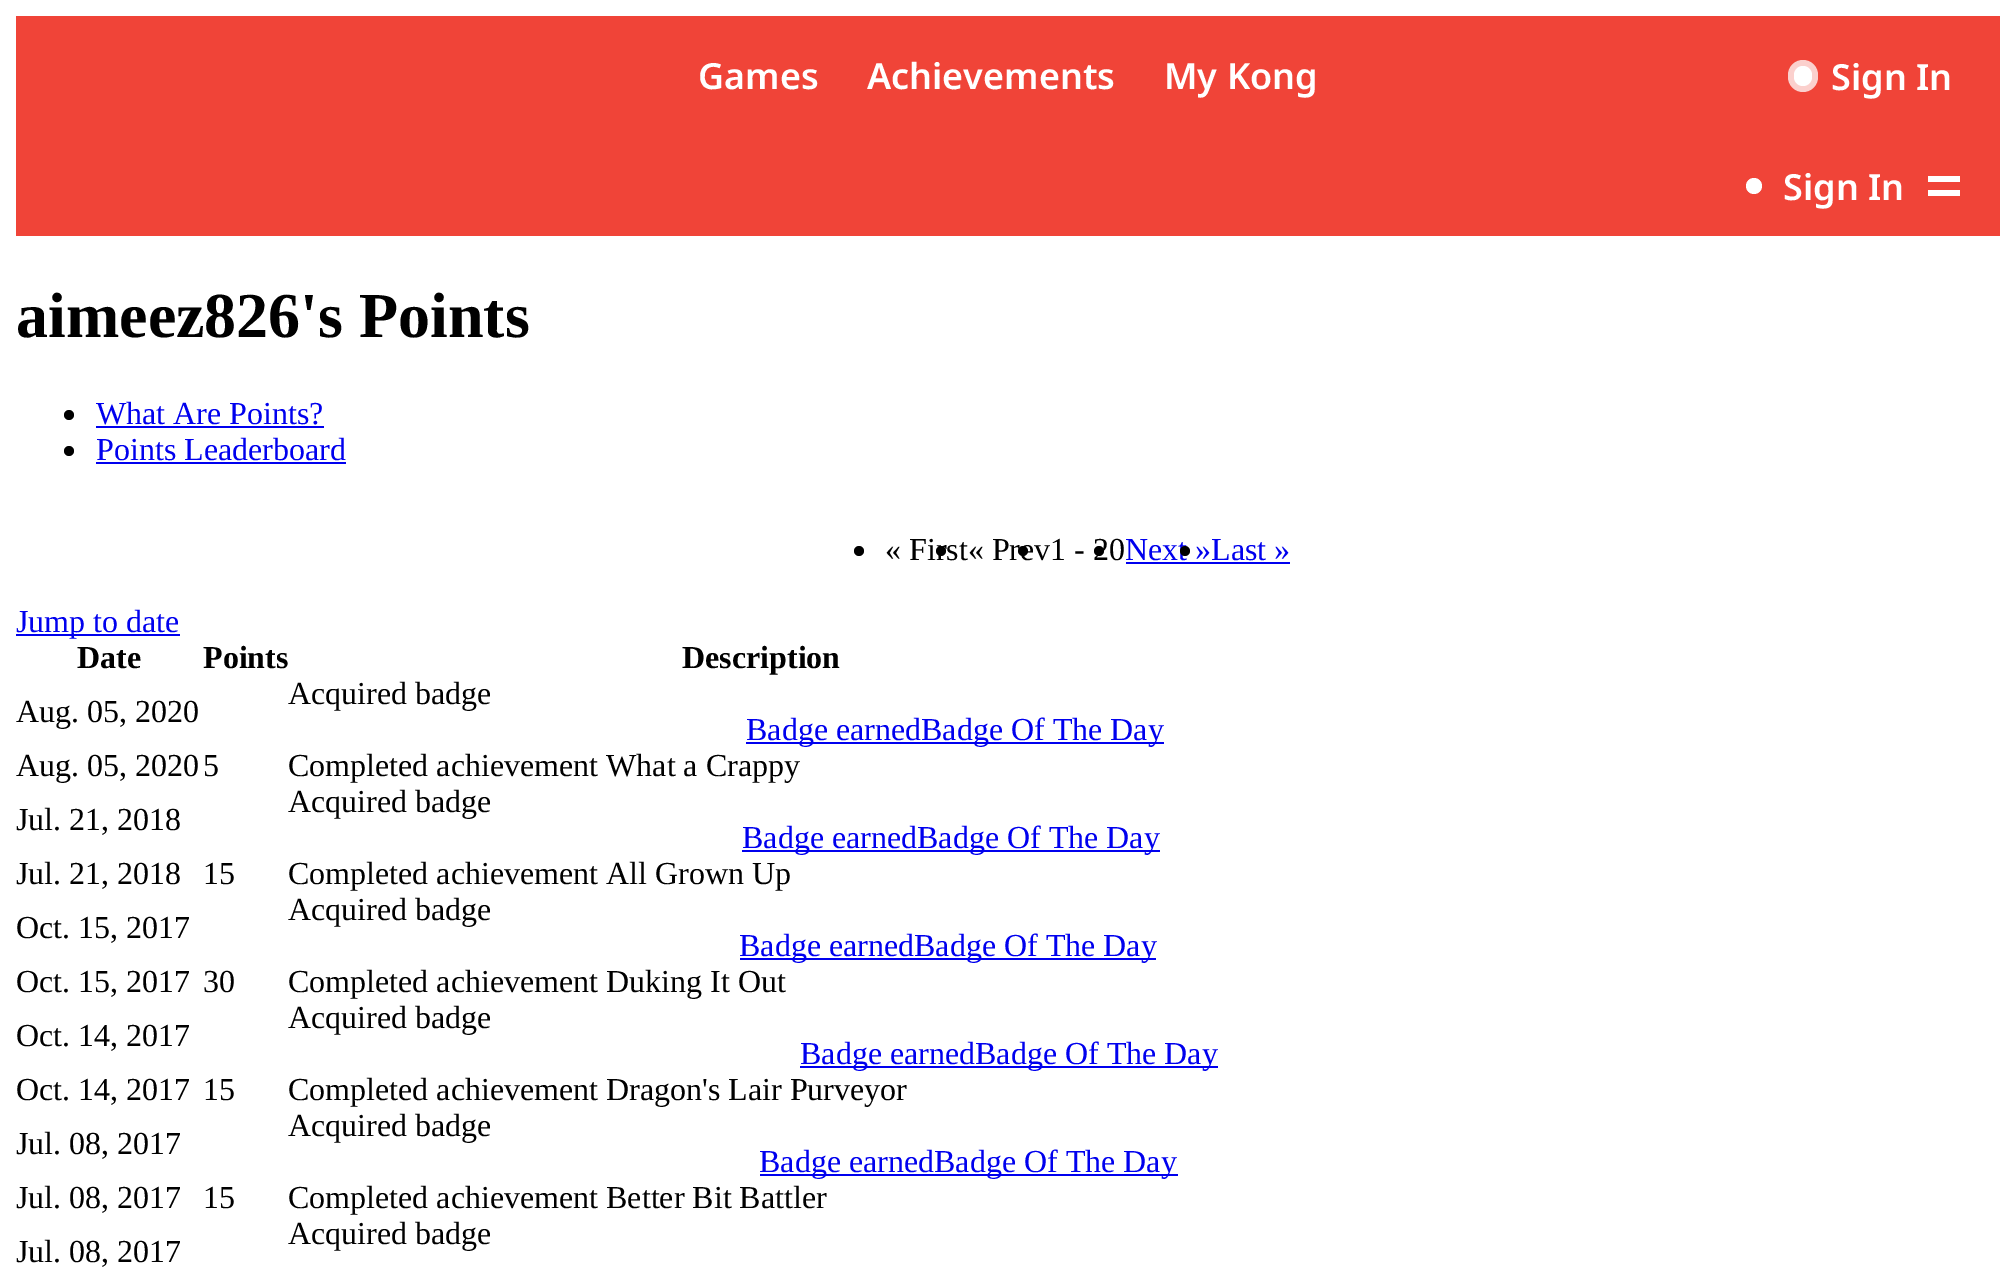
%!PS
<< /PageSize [2016 1272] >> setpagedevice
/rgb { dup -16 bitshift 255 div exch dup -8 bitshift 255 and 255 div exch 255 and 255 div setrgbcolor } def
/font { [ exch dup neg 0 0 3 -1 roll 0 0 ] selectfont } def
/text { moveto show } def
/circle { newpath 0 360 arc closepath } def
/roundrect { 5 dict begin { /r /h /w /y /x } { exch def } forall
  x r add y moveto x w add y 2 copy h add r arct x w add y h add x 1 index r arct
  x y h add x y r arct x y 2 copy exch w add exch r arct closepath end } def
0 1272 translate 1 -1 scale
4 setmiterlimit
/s1 { /NotoSans-SemiBold 36 font 16#FFFFFF rgb } def
/s2 { /LiberationSerif-Bold 64 font 16#000000 rgb } def
/s3 { /LiberationSerif-Regular 32 font 16#0000EE rgb } def
/s4 { /LiberationSerif-Regular 32 font 16#000000 rgb } def
/s5 { /LiberationSerif-Bold 32 font 16#000000 rgb } def
16#FFFFFF rgb
0 0 2016 1272 rectfill
16#F04438 rgb
16 16 1984 220 rectfill
s1
(Games) 698 89 text
(Achievements) 867 89 text
(My Kong) 1164 89 text
16#FBD0CD rgb
1788 60 30 32 15 roundrect fill
16#FFFFFF rgb
1794 66 18 20 9 roundrect fill
(Sign In) 1831 90 text
1754 186 8 circle fill
(Sign In) 1783 200 text
1928 176 32 6 rectfill
1928 190 32 6 rectfill
s2
(aimeez826's Points) 16 337 text
69 415 5 circle fill
s3
(What Are Points?) 96 424 text
96 426 228 2 rectfill
16#000000 rgb
69 451 5 circle fill
s3
(Points Leaderboard) 96 460 text
96 462 250 2 rectfill
16#000000 rgb
859 551 5 circle fill
(« First« Prev1 - 20) 885 560 text
1099 551 5 circle fill
s3
(Next »Last ») 1125 560 text
1126 562 164 2 rectfill
16#000000 rgb
941 551 5 circle fill
1023 551 5 circle fill
1185 551 5 circle fill
16#0000EE rgb
16 634 164 2 rectfill
(Jump to date) 16 632 text
s5
(Date) 77 668 text
(Points) 203 668 text
(Description) 682 668 text
s4
(Aug. 05, 2020) 16 722 text
(Acquired badge) 288 704 text
16#0000EE rgb
746 742 418 2 rectfill
(Badge earnedBadge Of The Day) 746 740 text
s4
(Aug. 05, 2020) 16 776 text
(5) 203 776 text
(Completed achievement What a Crappy) 288 776 text
(Jul. 21, 2018) 16 830 text
(Acquired badge) 288 812 text
16#0000EE rgb
742 850 174 2 rectfill
(Badge earned) 742 848 text
916 850 244 2 rectfill
(Badge Of The Day) 917 848 text
s4
(Jul. 21, 2018) 16 884 text
(15) 203 884 text
(Completed achievement All Grown Up) 288 884 text
(Oct. 15, 2017) 16 938 text
(Acquired badge) 288 920 text
16#0000EE rgb
740 958 416 2 rectfill
(Badge earnedBadge Of The Day) 739 956 text
s4
(Oct. 15, 2017) 16 992 text
(30) 203 992 text
(Completed achievement Duking It Out) 288 992 text
(Oct. 14, 2017) 16 1046 text
(Acquired badge) 288 1028 text
16#0000EE rgb
800 1066 174 2 rectfill
(Badge earned) 800 1064 text
974 1066 244 2 rectfill
(Badge Of The Day) 975 1064 text
s4
(Oct. 14, 2017) 16 1100 text
(15) 203 1100 text
(Completed achievement Dragon's Lair Purveyor) 288 1100 text
(Jul. 08, 2017) 16 1154 text
(Acquired badge) 288 1136 text
16#0000EE rgb
760 1174 174 2 rectfill
(Badge earned) 759 1172 text
934 1174 244 2 rectfill
(Badge Of The Day) 934 1172 text
s4
(Jul. 08, 2017) 16 1208 text
(15) 203 1208 text
(Completed achievement Better Bit Battler) 288 1208 text
(Jul. 08, 2017) 16 1262 text
(Acquired badge) 288 1244 text
showpage
